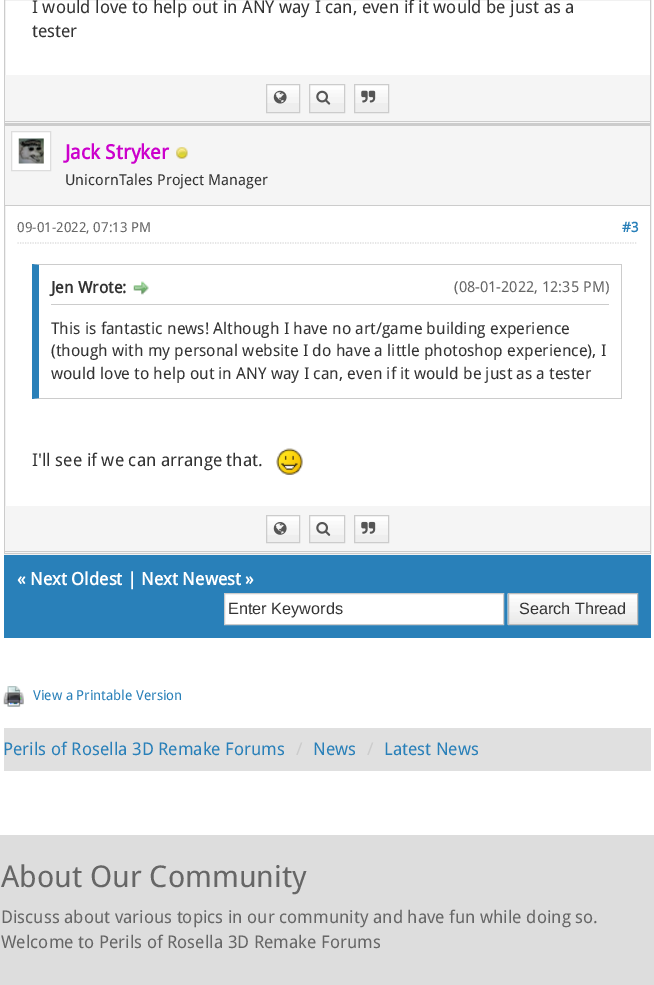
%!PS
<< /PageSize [654 985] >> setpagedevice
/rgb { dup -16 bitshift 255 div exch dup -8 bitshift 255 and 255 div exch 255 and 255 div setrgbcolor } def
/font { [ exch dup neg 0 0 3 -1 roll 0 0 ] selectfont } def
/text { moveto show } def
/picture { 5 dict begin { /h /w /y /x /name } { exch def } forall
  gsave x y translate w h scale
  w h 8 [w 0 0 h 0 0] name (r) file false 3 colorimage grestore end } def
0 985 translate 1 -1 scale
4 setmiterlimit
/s1 { /DroidSans-Regular 17.5 font 16#333333 rgb } def
/s2 { /DroidSans-Bold 20 font 16#CC00CC rgb } def
/s3 { /DroidSans-Regular 15 font 16#333333 rgb } def
/s4 { /DroidSans-Regular 13.75 font 16#666666 rgb } def
/s5 { /DroidSans-Bold 13.75 font 16#2980B9 rgb } def
/s6 { /DroidSans-Bold 16.25 font 16#333333 rgb } def
/s7 { /DroidSans-Regular 15 font 16#666666 rgb } def
/s8 { /DroidSans-Regular 16.25 font 16#333333 rgb } def
/s9 { /DroidSans-Bold 17.5 font 16#FFFFFF rgb } def
/s10 { /LiberationSans-Regular 16.25 font 16#333333 rgb } def
/s11 { /DroidSans-Regular 13.75 font 16#2980B9 rgb } def
/s12 { /DroidSans-Regular 17.5 font 16#2980B9 rgb } def
/s13 { /DroidSans-Regular 17.5 font 16#CCCCCC rgb } def
/s14 { /DroidSans-Regular 30 font 16#666666 rgb } def
/s15 { /DroidSans-Regular 17.5 font 16#666666 rgb } def
16#FFFFFF rgb
0 0 654 985 rectfill
16#CCCCCC rgb
4.5 -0.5 646 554 rectstroke
s1
(I would love to help out in ANY way I can, even if it would be just as a) 32 13 text
(tester) 32 37 text
16#F5F5F5 rgb
5 75 645 48 rectfill
16#CCCCCC rgb
5 121 645 1 rectfill
16#EEEEEE rgb
267 103 32 9 rectfill
(pic1.raw) 267 85 32 18 picture
16#CCCCCC rgb
266.5 84.5 33 28 rectstroke
(pic2.raw) 273 90 14 14 picture
16#EEEEEE rgb
310 103 34 9 rectfill
(pic3.raw) 310 85 34 18 picture
16#CCCCCC rgb
309.5 84.5 35 28 rectstroke
(pic4.raw) 316 90 15 15 picture
16#EEEEEE rgb
355 103 33 9 rectfill
(pic5.raw) 355 85 33 18 picture
16#CCCCCC rgb
354.5 84.5 34 28 rectstroke
(pic6.raw) 361 90 15 13 picture
16#F5F5F5 rgb
5 126 645 79 rectfill
16#CCCCCC rgb
5 123 645 3 rectfill
5 205 645 1 rectfill
16#FFFFFF rgb
11.5 131.5 moveto 50.5 131.5 lineto 50.5 170.5 lineto 11.5 170.5 lineto closepath gsave fill grestore
16#DDDDDD rgb
stroke
(pic7.raw) 18 138 26 26 picture
s2
(Jack Stryker) 65 159 text
(pic8.raw) 176 147 12 12 picture
s3
(UnicornTales Project Manager) 65 185 text
16#DDDDDD rgb
1.2 setlinewidth
[1.25 1.25] 0 setdash
17.5 243 moveto 637.5 243 lineto stroke
s4
(09-01-2022, 07:13 PM) 17 232 text
s5
(#3) 622 232 text
16#CCCCCC rgb
32 264 moveto 622 264 lineto 621 265 lineto 39 265 lineto closepath fill
621 264 1 135 rectfill
622 399 moveto 32 399 lineto 39 398 lineto 621 398 lineto closepath fill
16#2980B9 rgb
32 399 moveto 32 264 lineto 39 265 lineto 39 398 lineto closepath fill
16#CCCCCC rgb
51 304 558 1 rectfill
s6
(Jen Wrote:) 51 293 text
(pic9.raw) 133 281 16 14 picture
s7
(\(08-01-2022, 12:35 PM\)) 454 292 text
s8
(This is fantastic news! Although I have no art/game building experience) 51 334 text
(\(though with my personal website I do have a little photoshop experience\), I) 51 356 text
(would love to help out in ANY way I can, even if it would be just as a tester) 51 379 text
s1
(I'll see if we can arrange that.) 32 466 text
(pic10.raw) 276 448 27 27 picture
16#F5F5F5 rgb
5 506 645 47 rectfill
16#CCCCCC rgb
5 551 645 1 rectfill
16#EEEEEE rgb
267 535 32 7 rectfill
(pic11.raw) 267 516 32 19 picture
16#CCCCCC rgb
1 setlinewidth
[] 0 setdash
266.5 515.5 33 27 rectstroke
(pic12.raw) 273 522 14 13 picture
16#EEEEEE rgb
310 535 34 7 rectfill
(pic13.raw) 310 516 34 19 picture
16#CCCCCC rgb
309.5 515.5 35 27 rectstroke
(pic14.raw) 316 522 15 14 picture
16#EEEEEE rgb
355 535 33 7 rectfill
(pic15.raw) 355 516 33 19 picture
16#CCCCCC rgb
354.5 515.5 34 27 rectstroke
(pic16.raw) 361 521 15 13 picture
16#2980B9 rgb
4 555 647 83 rectfill
s9
(« Next Oldest | Next Newest ») 17 585 text
224.5 593.5 moveto 503.5 593.5 lineto 503.5 624.5 lineto 224.5 624.5 lineto closepath gsave fill grestore
16#CCCCCC rgb
stroke
s10
(Enter Keywords) 228 614 text
(pic17.raw) 507 593 130 32 picture
16#BBBBBB rgb
508.5 593.5 129 31 rectstroke
s10
(Search Thread) 519 614 text
(pic18.raw) 3 686 21 21 picture
s11
(View a Printable Version) 33 700 text
16#E0E0E0 rgb
4 728 647 43 rectfill
s12
(Perils of Rosella 3D Remake Forums) 3 755 text
s13
(/) 296 755 text
s12
(News) 313 755 text
s13
(/) 367 755 text
s12
(Latest News) 384 755 text
16#DDDDDD rgb
0 835 654 150 rectfill
s14
(About Our Community) 1 887 text
s15
(Discuss about various topics in our community and have fun while doing so.) 1 923 text
(Welcome to Perils of Rosella 3D Remake Forums) 1 948 text
showpage
